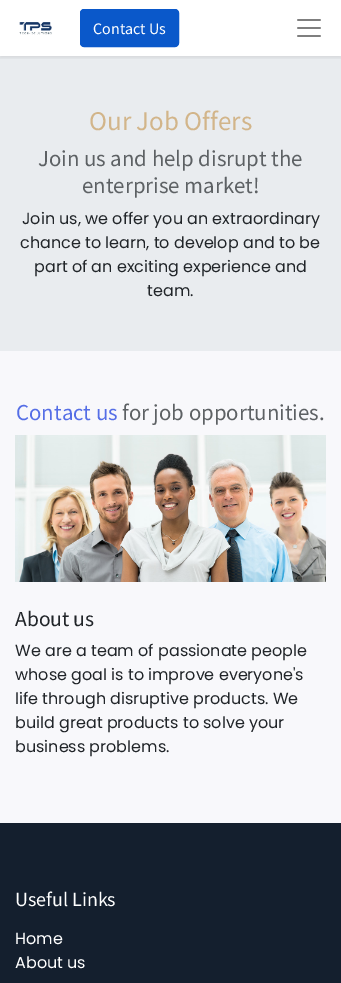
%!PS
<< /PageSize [341 983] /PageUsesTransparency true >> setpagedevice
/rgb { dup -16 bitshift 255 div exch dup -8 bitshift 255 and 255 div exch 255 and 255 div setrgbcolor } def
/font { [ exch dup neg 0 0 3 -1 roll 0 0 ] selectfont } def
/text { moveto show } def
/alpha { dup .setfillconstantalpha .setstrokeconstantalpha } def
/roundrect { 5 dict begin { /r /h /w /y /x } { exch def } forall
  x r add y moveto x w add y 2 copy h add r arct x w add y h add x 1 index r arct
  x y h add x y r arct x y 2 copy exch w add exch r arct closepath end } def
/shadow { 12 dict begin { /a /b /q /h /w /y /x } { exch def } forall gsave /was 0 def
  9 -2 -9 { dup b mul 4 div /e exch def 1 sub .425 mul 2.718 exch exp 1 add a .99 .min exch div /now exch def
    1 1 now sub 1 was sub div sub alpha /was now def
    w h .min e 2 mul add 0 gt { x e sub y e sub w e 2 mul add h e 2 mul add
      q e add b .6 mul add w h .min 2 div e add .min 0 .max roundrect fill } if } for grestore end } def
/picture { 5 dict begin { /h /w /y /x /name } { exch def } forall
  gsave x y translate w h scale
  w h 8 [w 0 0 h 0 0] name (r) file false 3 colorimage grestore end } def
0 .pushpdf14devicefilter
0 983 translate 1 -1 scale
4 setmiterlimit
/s1 { /SourceSansPro-Regular 16 font 16#FFFFFF rgb } def
/s2 { /SourceSansPro-Regular 27 font 16#D2B58A rgb } def
/s3 { /SourceSansPro-Regular 22.8 font 16#5D6164 rgb } def
/s4 { /Poppins-Regular 16 font 16#212529 rgb } def
/s5 { /SourceSansPro-Regular 22.8 font 16#556EE6 rgb } def
/s6 { /SourceSansPro-Regular 21.5 font 16#212529 rgb } def
/s7 { /SourceSansPro-Regular 20 font 16#FFFFFF rgb } def
/s8 { /Poppins-Regular 16 font 16#FFFFFF rgb } def
16#FFFFFF rgb
0 0 341 983 rectfill
16#E9ECEF rgb
0 56 341 295 rectfill
gsave
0 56 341 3 rectclip
16#000000 rgb
0 2 341 56 0 2 0.07 shadow
grestore
(pic1.raw) 19 22 33 13 picture
16#0A58CA rgb
80.5 9.5 98 37 3.5 roundrect gsave fill grestore
stroke
s1
(Contact Us) 93 34 text
(pic2.raw) 297 19 24 18 picture
16#F8F8FB rgb
0 351 341 472 rectfill
s2
(Our Job Offers) 89 130 text
s3
(Join us and help disrupt the) 38 166 text
(enterprise market!) 82 193 text
s4
(Join us, we offer you an extraordinary) 22 224 text
(chance to learn, to develop and to be) 20 248 text
(part of an exciting experience and) 34 272 text
(team.) 147 296 text
s5
(Contact us) 16 420 text
s3
(for job opportunities.) 122 420 text
(pic3.raw) 15 435 311 147 picture
s6
(About us) 15 626 text
s4
(We are a team of passionate people) 15 656 text
(whose goal is to improve everyone's) 15 680 text
(life through disruptive products. We) 15 704 text
(build great products to solve your) 15 728 text
(business problems.) 15 752 text
16#141F2E rgb
0 823 341 160 rectfill
s7
(Useful Links) 15 906 text
s8
(Home) 15 944 text
(About us) 15 968 text
.poppdf14devicefilter showpage
